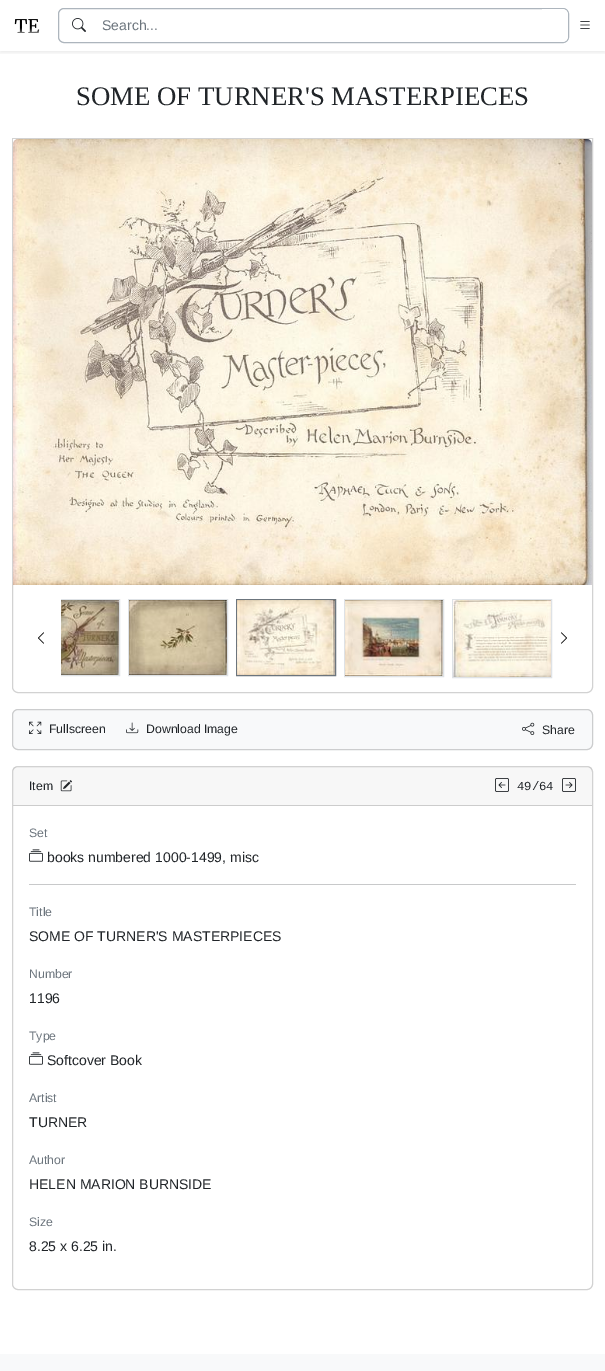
%!PS
<< /PageSize [605 1371] /PageUsesTransparency true >> setpagedevice
/rgb { dup -16 bitshift 255 div exch dup -8 bitshift 255 and 255 div exch 255 and 255 div setrgbcolor } def
/font { [ exch dup neg 0 0 3 -1 roll 0 0 ] selectfont } def
/text { moveto show } def
/alpha { dup .setfillconstantalpha .setstrokeconstantalpha } def
/roundrect { 5 dict begin { /r /h /w /y /x } { exch def } forall
  x r add y moveto x w add y 2 copy h add r arct x w add y h add x 1 index r arct
  x y h add x y r arct x y 2 copy exch w add exch r arct closepath end } def
/shadow { 12 dict begin { /a /b /q /h /w /y /x } { exch def } forall gsave /was 0 def
  9 -2 -9 { dup b mul 4 div /e exch def 1 sub .425 mul 2.718 exch exp 1 add a .99 .min exch div /now exch def
    1 1 now sub 1 was sub div sub alpha /was now def
    w h .min e 2 mul add 0 gt { x e sub y e sub w e 2 mul add h e 2 mul add
      q e add b .6 mul add w h .min 2 div e add .min 0 .max roundrect fill } if } for grestore end } def
/picture { 5 dict begin { /h /w /y /x /name } { exch def } forall
  gsave x y translate w h scale
  w h 8 [w 0 0 h 0 0] name (r) file false 3 colorimage grestore end } def
0 .pushpdf14devicefilter
0 1371 translate 1 -1 scale
4 setmiterlimit
/s1 { /LiberationSans-Regular 14 font 16#6C757D rgb } def
/s2 { /LiberationSerif-Regular 26.75 font 16#212529 rgb } def
/s3 { /LiberationSans-Regular 12.25 font 16#212529 rgb } def
/s4 { /LiberationMono-Regular 12.25 font 16#212529 rgb } def
/s5 { /LiberationSans-Regular 12.25 font 16#6C757D rgb } def
/s6 { /LiberationSans-Regular 14 font 16#212529 rgb } def
16#FFFFFF rgb
0 0 605 1371 rectfill
gsave
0 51 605 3 rectclip
16#000000 rgb
0 2 605 51 0 2 0.07 shadow
grestore
(pic1.raw) 14 19 26 14 picture
16#ADB5BD rgb
58.5 8.5 510 34 5.5 roundrect stroke
(pic2.raw) 72 18 14 14 picture
s1
(Search...) 102 30 text
16#FFFFFF rgb
542 9 moveto 562 9 lineto 565.5 9 568 11.5 568 15 curveto 568 36 lineto 568 39.5 565.5 42 562 42 curveto 542 42 lineto closepath fill
(pic3.raw) 580 21 10 8 picture
s2
(SOME OF TURNER'S MASTERPIECES) 76 105 text
16#D2D2D2 rgb
12.5 138.5 moveto 592.5 138.5 lineto 592.5 687 lineto 592.5 690 590 692.5 587 692.5 curveto 18 692.5 lineto 15 692.5 12.5 690 12.5 687 curveto closepath stroke
(pic4.raw) 13 139 579 446 picture
gsave
61 599 491 79 rectclip
16#DEE2E6 rgb
20.5 599.5 99 76 rectstroke
grestore
(pic5.raw) 61 600 58 75 picture
16#DEE2E6 rgb
128.5 599.5 99 76 rectstroke
(pic6.raw) 129 600 98 75 picture
16#6C757D rgb
236.5 599.5 99 76 rectstroke
(pic7.raw) 237 600 98 75 picture
16#DEE2E6 rgb
344.5 599.5 99 77 rectstroke
(pic8.raw) 345 600 98 76 picture
452.5 599.5 99 78 rectstroke
(pic9.raw) 453 600 98 77 picture
(pic10.raw) 38 632 6 12 picture
(pic11.raw) 561 632 6 12 picture
16#F8F9FA rgb
12.5 709.5 580 40 5.5 roundrect gsave fill grestore
16#CCCDCE rgb
stroke
(pic12.raw) 29 721 13 13 picture
s3
(Fullscreen) 49 733 text
(pic13.raw) 126 722 13 12 picture
(Download Image) 146 733 text
(pic14.raw) 522 722 13 13 picture
(Share) 542 734 text
16#D2D2D2 rgb
12.5 766.5 580 523 5.5 roundrect stroke
0.03 alpha
16#000000 rgb
13 767 579 38 rectfill
1 alpha
16#CCCCCC rgb
13 805 579 1 rectfill
s3
(Item) 29 790 text
(pic15.raw) 60 780 12 12 picture
(pic16.raw) 495 778 14 14 picture
s4
(49/64) 517 790 text
(pic17.raw) 562 778 14 14 picture
s5
(Set) 29 837 text
(pic18.raw) 29 849 14 13 picture
s6
(books numbered 1000-1499, misc) 47 862 text
16#C8C9CA rgb
29 884 547 1 rectfill
s5
(Title) 29 916 text
s6
(SOME OF TURNER'S MASTERPIECES) 29 941 text
s5
(Number) 29 978 text
s6
(1196) 29 1003 text
s5
(Type) 29 1040 text
(pic18.raw) 29 1052 14 13 picture
s6
(Softcover Book) 47 1065 text
s5
(Artist) 29 1102 text
s6
(TURNER) 29 1127 text
s5
(Author) 29 1164 text
s6
(HELEN MARION BURNSIDE) 29 1189 text
s5
(Size) 29 1226 text
s6
(8.25 x 6.25 in.) 29 1251 text
16#F8F9FA rgb
0 1354 605 17 rectfill
.poppdf14devicefilter showpage
